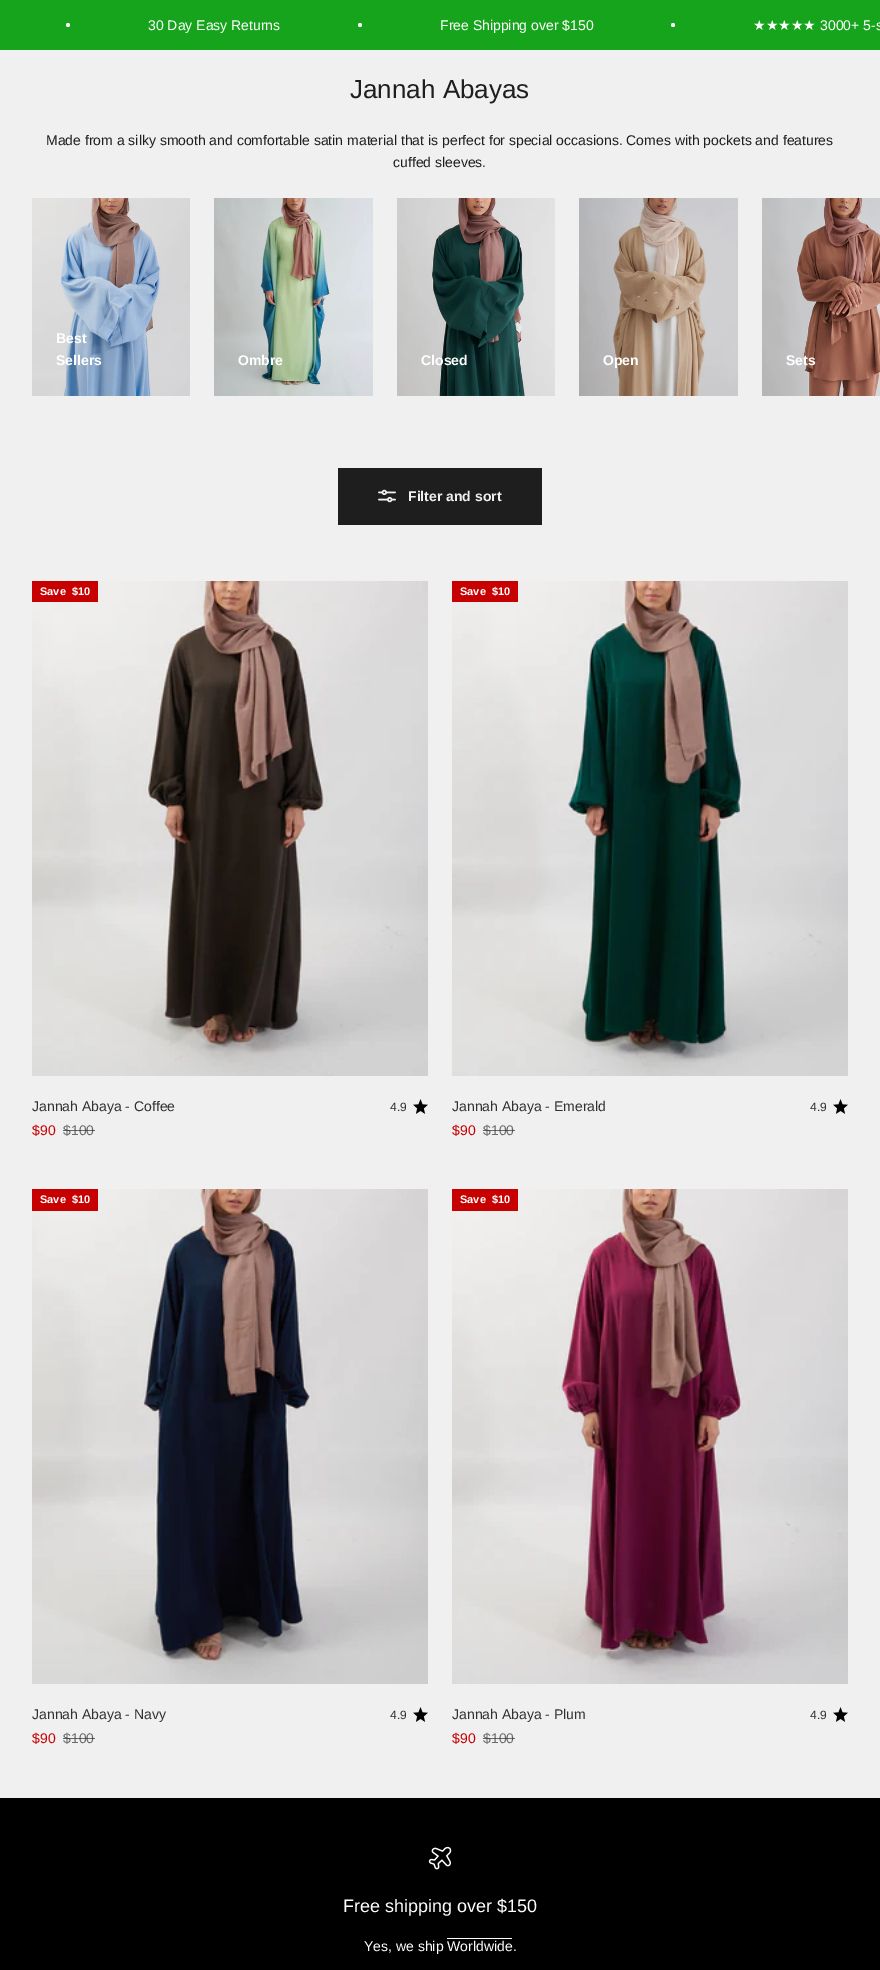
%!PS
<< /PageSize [880 1970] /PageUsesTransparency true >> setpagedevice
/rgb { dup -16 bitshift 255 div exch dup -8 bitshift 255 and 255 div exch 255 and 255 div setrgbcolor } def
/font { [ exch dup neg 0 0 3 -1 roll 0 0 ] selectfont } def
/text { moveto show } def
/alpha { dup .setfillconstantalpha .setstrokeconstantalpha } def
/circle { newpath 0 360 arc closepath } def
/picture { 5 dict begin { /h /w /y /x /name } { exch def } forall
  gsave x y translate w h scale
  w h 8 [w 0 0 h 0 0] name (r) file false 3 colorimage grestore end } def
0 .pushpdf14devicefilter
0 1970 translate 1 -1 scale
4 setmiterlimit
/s1 { /LiberationSans-Regular 14 font 16#FFFFFF rgb } def
/s2 { /DejaVuSans-Regular 14 font 16#FFFFFF rgb } def
/s3 { /LiberationSans-Regular 26 font 16#1E1E1E rgb } def
/s4 { /LiberationSans-Regular 14 font 16#1E1E1E rgb } def
/s5 { /LiberationSans-Bold 14 font 16#FFFFFF rgb } def
/s6 { /LiberationSans-Bold 14 font 16#F0F0F0 rgb } def
/s7 { /LiberationSans-Bold 11 font 16#FFFFFF rgb } def
/s8 { /LiberationSans-Regular 14 font 16#303030 rgb } def
/s9 { /LiberationSans-Regular 12 font 16#303030 rgb } def
/s10 { /LiberationSans-Regular 14 font 16#C70101 rgb } def
/s11 { /LiberationSans-Regular 14 font 16#6A6A6A rgb } def
/s12 { /LiberationSans-Regular 18 font 16#FFFFFF rgb } def
16#F0F0F0 rgb
0 0 880 1970 rectfill
16#16A41D rgb
0 0 880 50 rectfill
16#FFFFFF rgb
68 25 2 circle fill
s1
(30 Day Easy Returns) 148 30 text
360 25 2 circle fill
(Free Shipping over $150) 440 30 text
673 25 2 circle fill
s2
(★★★★★) 753 30 text
s1
(3000+ 5-s) 820 30 text
s3
(Jannah Abayas) 350 98 text
s4
(Made from a silky smooth and comfortable satin material that is perfect for special occasions. Comes with pockets and features) 46 145 text
(cuffed sleeves.) 393 167 text
(pic1.raw) 32 198 158 198 picture
s5
(Best) 56 343 text
(Sellers) 56 365 text
(pic2.raw) 214 198 159 198 picture
(Ombre) 238 365 text
(pic3.raw) 397 198 158 198 picture
(Closed) 421 365 text
(pic4.raw) 579 198 159 198 picture
(Open) 603 365 text
(pic5.raw) 762 198 118 198 picture
(Sets) 786 365 text
16#1E1E1E rgb
338 468 204 57 rectfill
(pic6.raw) 378 489 18 14 picture
s6
(Filter and sort) 408 501 text
(pic7.raw) 32 581 396 495 picture
16#C70101 rgb
32 581 66 21 rectfill
s7
(Save) 40 595 text
($10) 72 595 text
s8
(Jannah Abaya - Coffee) 32 1111 text
s9
(4.9) 390 1111 text
(pic8.raw) 413 1099 15 15 picture
s10
($90) 32 1135 text
s11
($100) 63 1135 text
0.7 alpha
16#303030 rgb
63 1130 32 1 rectfill
1 alpha
(pic9.raw) 452 581 396 495 picture
16#C70101 rgb
452 581 66 21 rectfill
s7
(Save) 460 595 text
($10) 492 595 text
s8
(Jannah Abaya - Emerald) 452 1111 text
s9
(4.9) 810 1111 text
(pic8.raw) 833 1099 15 15 picture
s10
($90) 452 1135 text
s11
($100) 483 1135 text
0.7 alpha
16#303030 rgb
483 1130 32 1 rectfill
1 alpha
(pic10.raw) 32 1189 396 495 picture
16#C70101 rgb
32 1189 66 22 rectfill
s7
(Save) 40 1203 text
($10) 72 1203 text
s8
(Jannah Abaya - Navy) 32 1719 text
s9
(4.9) 390 1719 text
(pic8.raw) 413 1707 15 15 picture
s10
($90) 32 1743 text
s11
($100) 63 1743 text
0.7 alpha
16#303030 rgb
63 1738 32 1 rectfill
1 alpha
(pic11.raw) 452 1189 396 495 picture
16#C70101 rgb
452 1189 66 22 rectfill
s7
(Save) 460 1203 text
($10) 492 1203 text
s8
(Jannah Abaya - Plum) 452 1719 text
s9
(4.9) 810 1719 text
(pic8.raw) 833 1707 15 15 picture
s10
($90) 452 1743 text
s11
($100) 483 1743 text
0.7 alpha
16#303030 rgb
483 1738 32 1 rectfill
1 alpha
16#000000 rgb
0 1798 880 172 rectfill
(pic12.raw) 428 1846 24 24 picture
s12
(Free shipping over $150) 343 1912 text
447 1938 65 1 rectfill
s1
(Yes, we ship Worldwide.) 364 1951 text
.poppdf14devicefilter showpage
